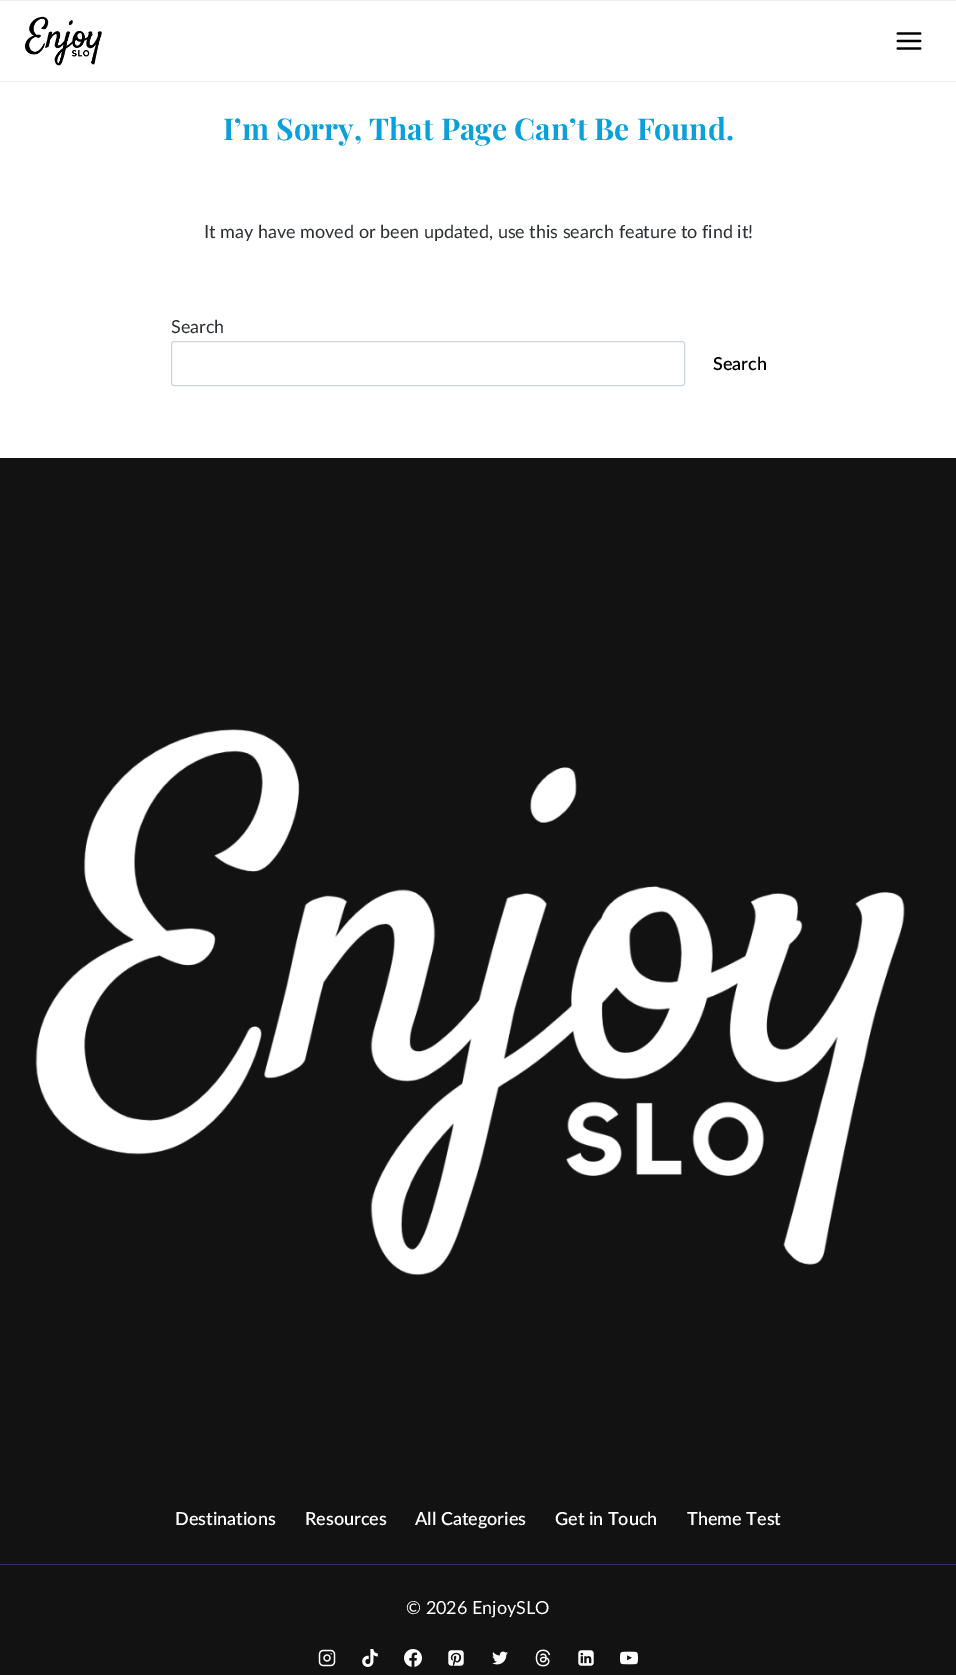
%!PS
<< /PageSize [956 1675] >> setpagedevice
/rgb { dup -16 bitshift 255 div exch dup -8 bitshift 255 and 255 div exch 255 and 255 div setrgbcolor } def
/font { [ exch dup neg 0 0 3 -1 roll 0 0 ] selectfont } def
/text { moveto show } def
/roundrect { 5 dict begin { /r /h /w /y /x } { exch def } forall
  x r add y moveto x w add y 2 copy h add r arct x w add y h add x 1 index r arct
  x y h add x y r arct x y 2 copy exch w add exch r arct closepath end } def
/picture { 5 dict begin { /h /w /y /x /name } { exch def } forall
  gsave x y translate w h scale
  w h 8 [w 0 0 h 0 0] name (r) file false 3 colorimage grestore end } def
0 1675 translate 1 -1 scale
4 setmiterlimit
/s1 { /PlayfairDisplay-Bold 30 font 16#0AA0D9 rgb } def
/s2 { /Lato-Regular 18 font 16#2D3033 rgb } def
/s3 { /Lato-SemiBold 18 font 16#010101 rgb } def
/s4 { /Lato-SemiBold 18 font 16#FFFFFF rgb } def
/s5 { /Lato-Regular 18 font 16#FFFFFF rgb } def
16#FFFFFF rgb
0 0 956 1675 rectfill
16#EEEEEE rgb
0 0 956 1 rectfill
0 81 956 1 rectfill
(pic1.raw) 24 16 78 50 picture
(pic2.raw) 896 32 26 18 picture
s1
(I’m Sorry, That Page Can’t Be Found.) 223 140 text
s2
(It may have moved or been updated, use this search feature to find it!) 204 238 text
(Search) 171 333 text
16#CBD5E0 rgb
171.5 341.5 513 44 2.5 roundrect stroke
s3
(Search) 713 370 text
16#121212 rgb
0 458 956 1217 rectfill
(pic3.raw) 35 729 870 547 picture
s4
(Destinations) 175 1525 text
(Resources) 305 1525 text
(All Categories) 415 1525 text
(Get in Touch) 555 1525 text
(Theme Test) 687 1525 text
16#3E3063 rgb
0 1564 956 1 rectfill
s5
(© 2026 EnjoySLO) 406 1614 text
(pic4.raw) 318 1649 18 18 picture
(pic5.raw) 362 1649 16 18 picture
(pic6.raw) 404 1649 18 18 picture
(pic7.raw) 448 1650 16 16 picture
(pic8.raw) 492 1651 16 14 picture
(pic9.raw) 535 1649 16 18 picture
(pic10.raw) 578 1650 16 16 picture
(pic11.raw) 620 1651 18 14 picture
showpage
